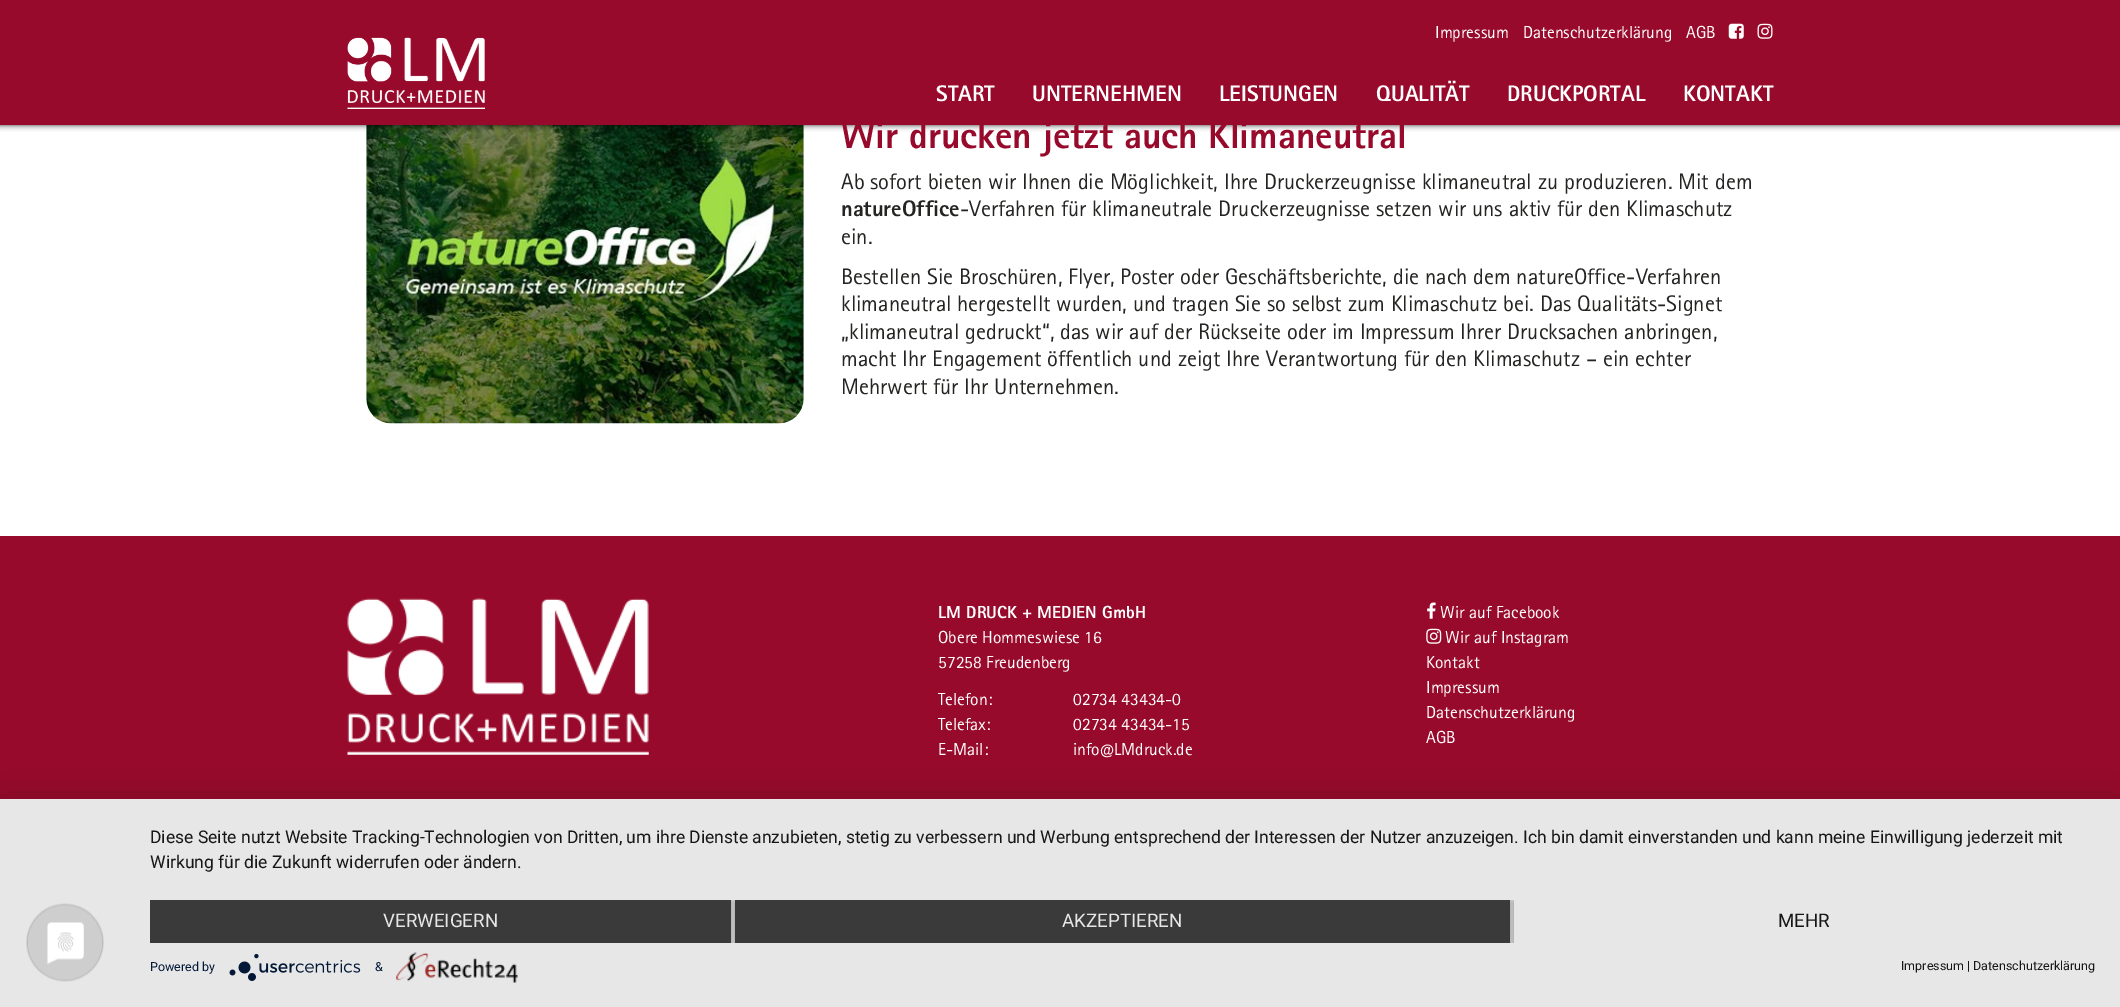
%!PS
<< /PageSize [2120 1007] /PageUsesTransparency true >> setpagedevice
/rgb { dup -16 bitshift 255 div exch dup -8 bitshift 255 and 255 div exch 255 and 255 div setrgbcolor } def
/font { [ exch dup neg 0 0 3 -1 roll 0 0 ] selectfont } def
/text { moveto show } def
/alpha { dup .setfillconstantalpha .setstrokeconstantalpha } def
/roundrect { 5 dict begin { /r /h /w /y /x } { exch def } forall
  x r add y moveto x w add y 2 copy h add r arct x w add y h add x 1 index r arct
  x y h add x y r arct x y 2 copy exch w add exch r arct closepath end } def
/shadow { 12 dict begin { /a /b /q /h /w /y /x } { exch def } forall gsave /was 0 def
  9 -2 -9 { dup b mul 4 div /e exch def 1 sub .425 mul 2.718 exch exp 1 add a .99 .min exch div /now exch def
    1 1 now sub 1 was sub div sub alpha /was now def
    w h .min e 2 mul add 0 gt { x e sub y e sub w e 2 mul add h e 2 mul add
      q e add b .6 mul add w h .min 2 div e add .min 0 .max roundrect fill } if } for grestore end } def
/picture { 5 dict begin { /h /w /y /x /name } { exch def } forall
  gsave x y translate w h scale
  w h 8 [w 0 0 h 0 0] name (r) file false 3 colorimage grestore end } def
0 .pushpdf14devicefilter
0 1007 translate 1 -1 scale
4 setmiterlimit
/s1 { /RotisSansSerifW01-Regular 17.5 font 16#FFFFFF rgb } def
/s2 { /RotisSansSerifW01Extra-ExtraBold 22.5 font 16#FFFFFF rgb } def
/s3 { /RotisSansSerifW01Extra-ExtraBold 37.5 font 16#980A2B rgb } def
/s4 { /RotisSansSerifW01-Regular 22.5 font 16#242422 rgb } def
/s5 { /RotisSansSerifW01Extra-ExtraBold 22.5 font 16#242422 rgb } def
/s6 { /RotisSansSerifW01Extra-ExtraBold 17.5 font 16#FFFFFF rgb } def
/s7 { /Roboto-Regular 17.5 font 16#161616 rgb } def
/s8 { /Roboto-Regular 18.75 font 16#E7E7E7 rgb } def
/s9 { /Roboto-Regular 18.75 font 16#161616 rgb } def
/s10 { /Roboto-Regular 12.5 font 16#021836 rgb } def
/s11 { /Roboto-Regular 12.5 font 16#161616 rgb } def
16#FFFFFF rgb
0 0 2120 1007 rectfill
(pic4.raw) 366 125 438 299 picture
16#000000 rgb
0 0 2120 125 0 3 0.8 shadow
16#980A2B rgb
0 0 2120 125 rectfill
s1
(Impressum) 1435 38 text
(Datenschutzerklärung) 1523 38 text
(AGB) 1686 38 text
(pic1.raw) 1728 23 16 16 picture
(pic2.raw) 1757 23 16 16 picture
(pic3.raw) 347 37 138 72 picture
s2
(START) 936 101 text
(UNTERNEHMEN) 1032 101 text
(LEISTUNGEN) 1219 101 text
(QUALITÄT) 1376 101 text
(DRUCKPORTAL) 1507 101 text
(KONTAKT) 1683 101 text
s3
(Wir drucken jetzt auch Klimaneutral) 841 148 text
s4
(Ab sofort bieten wir Ihnen die Möglichkeit, Ihre Druckerzeugnisse klimaneutral zu produzieren. Mit dem) 841 189 text
s5
(natureOffice) 841 216 text
s4
(-Verfahren für klimaneutrale Druckerzeugnisse setzen wir uns aktiv für den Klimaschutz) 960 216 text
(ein.) 841 244 text
(Bestellen Sie Broschüren, Flyer, Poster oder Geschäftsberichte, die nach dem natureOffice-Verfahren) 841 284 text
(klimaneutral hergestellt wurden, und tragen Sie so selbst zum Klimaschutz bei. Das Qualitäts-Signet) 841 311 text
(„klimaneutral gedruckt“, das wir auf der Rückseite oder im Impressum Ihrer Drucksachen anbringen,) 841 339 text
(macht Ihr Engagement öffentlich und zeigt Ihre Verantwortung für den Klimaschutz – ein echter) 841 366 text
(Mehrwert für Ihr Unternehmen.) 841 394 text
16#980A2B rgb
0 536 2120 263 rectfill
(pic5.raw) 347 598 302 157 picture
s6
(LM DRUCK + MEDIEN GmbH) 938 618 text
s1
(Obere Hommeswiese 16) 938 643 text
(57258 Freudenberg) 938 668 text
(Telefon:) 938 705 text
(02734 43434-0) 1073 705 text
(Telefax:) 938 730 text
(02734 43434-15) 1073 730 text
(E-Mail:) 938 755 text
(info@LMdruck.de) 1073 755 text
(pic6.raw) 1427 602 9 17 picture
(Wir auf Facebook) 1440 618 text
(pic7.raw) 1426 628 16 16 picture
(Wir auf Instagram) 1445 643 text
(Kontakt) 1426 668 text
(Impressum) 1426 693 text
(Datenschutzerklärung) 1426 718 text
(AGB) 1426 743 text
16#000000 rgb
0 808 2120 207 0 22.5 0.3 shadow
16#E7E7E7 rgb
0 800 2120 207 rectfill
(pic8.raw) 26 903 78 79 picture
s7
(Diese Seite nutzt Website Tracking-Technologien von Dritten, um ihre Dienste anzubieten, stetig zu verbessern und Werbung entsprechend der Interessen der Nutzer anzuzeigen. Ich bin damit einverstanden und kann meine Einwilligung jederzeit mit) 150 843 text
(Wirkung für die Zukunft widerrufen oder ändern.) 150 868 text
(pic10.raw) 396 952 122 31 picture
gsave
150 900 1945 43 rectclip
16#000000 rgb
150 901 581 43 0 2.5 0.4 shadow
grestore
16#3A3A3A rgb
150 900 581 43 rectfill
s8
(VERWEIGERN) 383 927 text
gsave
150 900 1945 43 rectclip
16#000000 rgb
735 901 775 43 0 2.5 0.4 shadow
grestore
16#3A3A3A rgb
735 900 775 43 rectfill
s8
(AKZEPTIEREN) 1062 927 text
gsave
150 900 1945 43 rectclip
16#000000 rgb
1514 901 581 43 0 2.5 0.4 shadow
grestore
1514 900 581 43 rectfill
s9
(MEHR) 1778 927 text
s10
(Powered by) 150 971 text
(pic9.raw) 229 953 132 28 picture
(&) 375 971 text
s11
(Impressum | Datenschutzerklärung) 1901 970 text
.poppdf14devicefilter showpage
